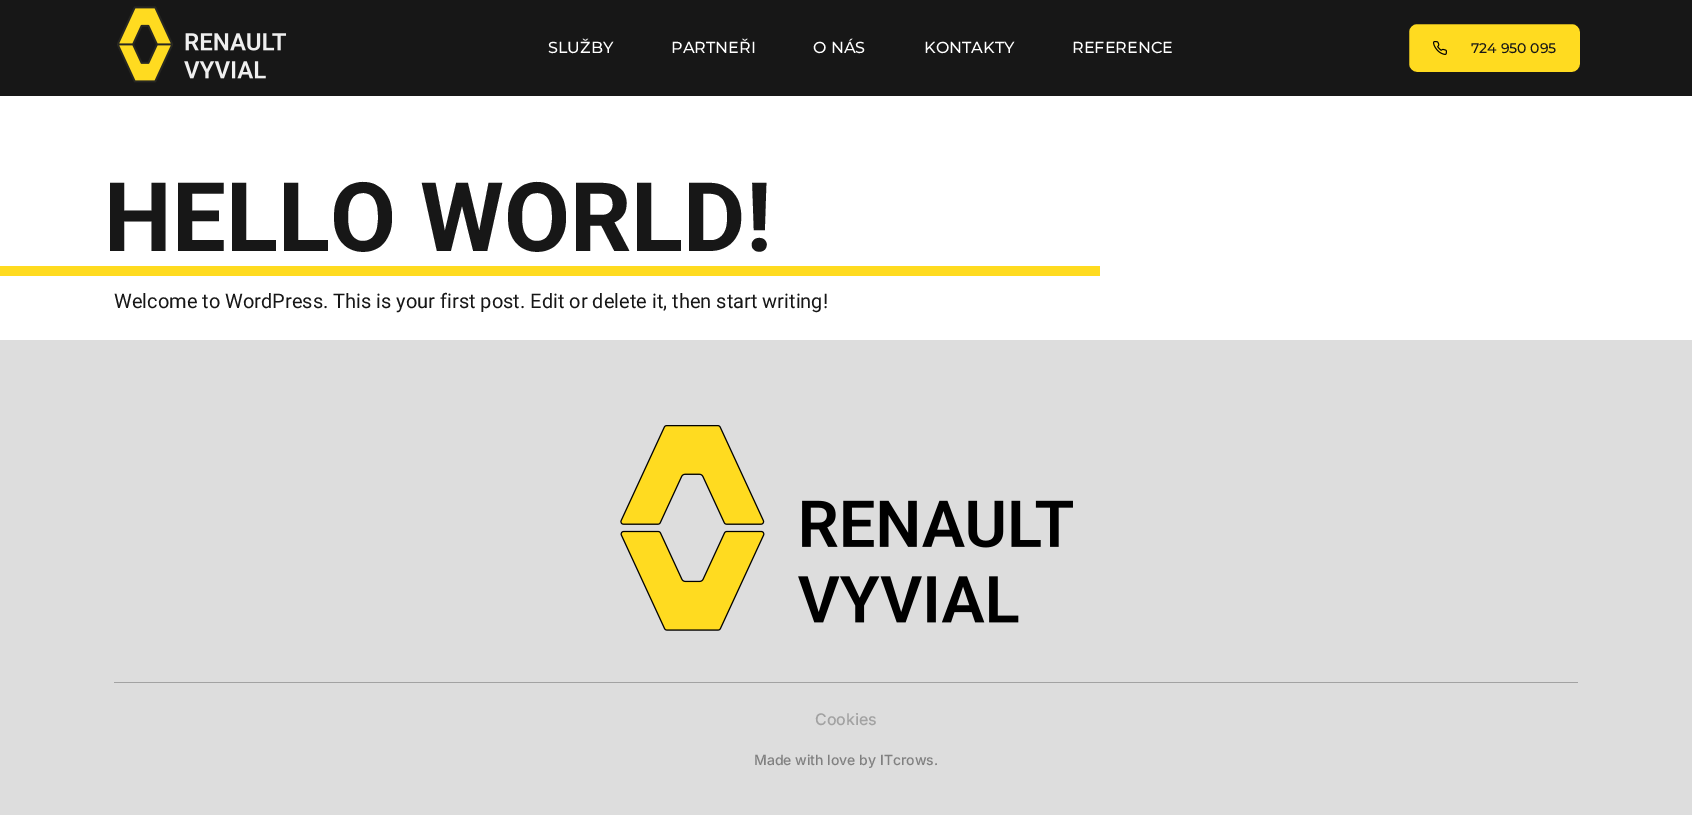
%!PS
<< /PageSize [1692 815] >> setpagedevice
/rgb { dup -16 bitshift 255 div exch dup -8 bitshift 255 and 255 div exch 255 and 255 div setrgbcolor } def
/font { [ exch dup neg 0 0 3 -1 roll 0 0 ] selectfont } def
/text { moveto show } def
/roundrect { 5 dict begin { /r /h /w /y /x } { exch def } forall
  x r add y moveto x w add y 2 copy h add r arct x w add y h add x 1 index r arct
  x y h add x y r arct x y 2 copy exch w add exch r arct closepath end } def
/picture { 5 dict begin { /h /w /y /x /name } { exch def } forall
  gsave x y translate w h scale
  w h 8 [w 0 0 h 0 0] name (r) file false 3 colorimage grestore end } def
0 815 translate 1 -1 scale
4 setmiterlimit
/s1 { /Montserrat-Medium 16 font 16#FFFFFF rgb } def
/s2 { /Montserrat-Medium 14 font 16#171717 rgb } def
/s3 { /Roboto-Bold 96 font 16#171717 rgb } def
/s4 { /Roboto-Regular 20 font 16#171717 rgb } def
/s5 { /Inter-Medium 16 font 16#A2A2A2 rgb } def
/s6 { /Inter-Medium 14 font 16#808080 rgb } def
16#FFFFFF rgb
0 0 1692 815 rectfill
16#171717 rgb
0 0 1692 96 rectfill
(pic1.raw) 117 6 170 77 picture
s1
(SLUŽBY) 548 53 text
(PARTNEŘI) 671 53 text
(O NÁS) 813 53 text
(KONTAKTY) 924 53 text
(REFERENCE) 1072 53 text
16#FFDB20 rgb
1408 23 173 50 9 roundrect gsave fill grestore
16#171717 rgb
2 setlinewidth
stroke
(pic2.raw) 1433 41 14 14 picture
s2
(724 950 095) 1471 53 text
16#FFDB20 rgb
0 266 1100 10 rectfill
s3
(HELLO WORLD!) 104 251 text
s4
(Welcome to WordPress. This is your first post. Edit or delete it, then start writing!) 114 308 text
16#DDDDDD rgb
0 340 1692 475 rectfill
(pic3.raw) 620 425 453 206 picture
16#A2A2A2 rgb
114 682 1464 1 rectfill
s5
(Cookies) 815 725 text
s6
(Made with love by ITcrows.) 754 765 text
showpage
